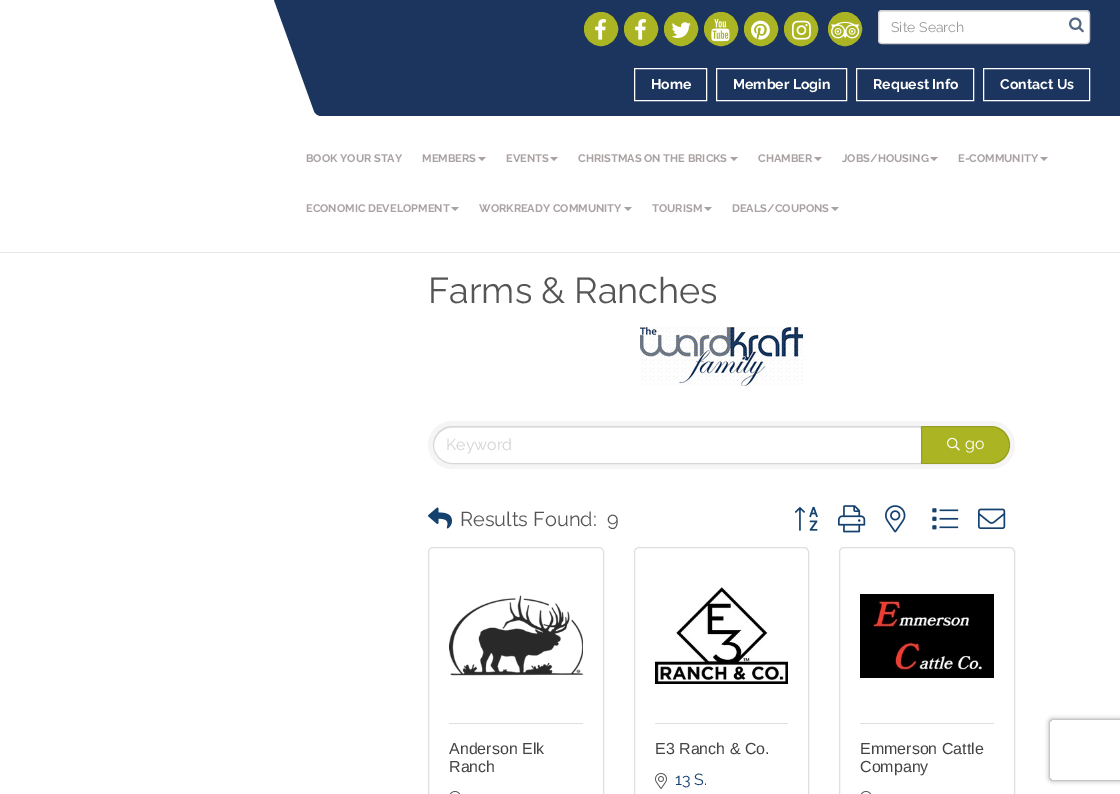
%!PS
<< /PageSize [1120 794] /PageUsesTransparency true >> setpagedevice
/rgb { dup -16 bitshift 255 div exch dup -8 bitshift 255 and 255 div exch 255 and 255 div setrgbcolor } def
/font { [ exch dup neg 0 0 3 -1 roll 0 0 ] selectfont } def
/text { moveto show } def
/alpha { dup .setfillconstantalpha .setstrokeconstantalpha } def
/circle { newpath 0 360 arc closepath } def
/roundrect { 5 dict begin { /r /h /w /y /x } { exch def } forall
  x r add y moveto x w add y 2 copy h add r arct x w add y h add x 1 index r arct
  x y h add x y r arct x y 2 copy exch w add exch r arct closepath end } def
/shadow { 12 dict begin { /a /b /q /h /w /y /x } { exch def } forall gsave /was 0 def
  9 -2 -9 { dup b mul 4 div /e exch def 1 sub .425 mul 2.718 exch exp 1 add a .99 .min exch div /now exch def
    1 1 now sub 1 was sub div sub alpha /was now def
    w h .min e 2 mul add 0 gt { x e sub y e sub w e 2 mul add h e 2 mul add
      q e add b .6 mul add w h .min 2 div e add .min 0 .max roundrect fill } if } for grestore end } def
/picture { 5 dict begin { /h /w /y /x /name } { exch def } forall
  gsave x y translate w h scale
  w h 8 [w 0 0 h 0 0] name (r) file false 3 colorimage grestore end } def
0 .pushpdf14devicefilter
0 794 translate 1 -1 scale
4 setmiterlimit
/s1 { /Raleway-Regular 14 font 16#999999 rgb } def
/s2 { /Raleway-Bold 14 font 16#FFFFFF rgb } def
/s3 { /Raleway-Bold 11 font 16#AAA2A2 rgb } def
/s4 { /Raleway-Regular 36 font 16#555555 rgb } def
/s5 { /Raleway-Regular 16 font 16#D2D2D2 rgb } def
/s6 { /Raleway-Regular 16 font 16#FFFFFF rgb } def
/s7 { /Raleway-Regular 20 font 16#555555 rgb } def
/s8 { /LiberationSans-Regular 16 font 16#444444 rgb } def
/s9 { /Raleway-Regular 16 font 16#15416F rgb } def
16#FFFFFF rgb
0 0 1120 794 rectfill
16#E6E6E6 rgb
0 252 1120 1 rectfill
16#1C355E rgb
274 0 moveto 1069 0 lineto 1111 116 lineto 321 116 lineto 318 116 315 114 314 111 curveto closepath fill
16#ABB523 rgb
601 29 16.5 circle gsave fill grestore
stroke
(pic1.raw) 595 19 11 21 picture
641 29 16.5 circle gsave fill grestore
stroke
(pic1.raw) 635 19 11 21 picture
681 29 16.5 circle gsave fill grestore
stroke
(pic2.raw) 671 22 20 16 picture
721 29 16.5 circle gsave fill grestore
stroke
(pic3.raw) 711 19 19 23 picture
761 29 16.5 circle gsave fill grestore
stroke
(pic4.raw) 751 20 19 20 picture
801 29 16.5 circle gsave fill grestore
stroke
(pic5.raw) 792 20 19 20 picture
845 29 16.5 circle gsave fill grestore
stroke
(pic6.raw) 831 21 29 18 picture
16#1C355E rgb
1068 0 moveto 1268 0 lineto 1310 116 lineto 1110 116 lineto closepath fill
16#FFFFFF rgb
878 10 212 34 4 roundrect fill
16#ECECEC rgb
882 12 moveto 1086 12 lineto 1088 12 1089 13 1089 15 curveto 1089 14 lineto 1089 12 1088 11 1086 11 curveto 882 11 lineto 880 11 879 12 879 14 curveto 879 15 lineto 879 13 880 12 882 12 curveto closepath fill
16#CCCCCC rgb
878.5 10.5 211 33 3.5 roundrect stroke
s1
(Site Search) 891 32 text
(pic7.raw) 1069 17 15 16 picture
16#FFFFFF rgb
634.5 68.5 72 32 rectstroke
s2
(Home) 651 89 text
716.5 68.5 130 32 rectstroke
(Member Login) 733 89 text
856.5 68.5 117 32 rectstroke
(Request Info) 873 89 text
983.5 68.5 106 32 rectstroke
(Contact Us) 1000 89 text
s3
(BOOK YOUR STAY) 306 162 text
(MEMBERS) 422 162 text
478 157 moveto 486 157 lineto 482 161 lineto closepath fill
(EVENTS) 506 162 text
550 157 moveto 558 157 lineto 554 161 lineto closepath fill
(CHRISTMAS ON THE BRICKS) 578 162 text
730 157 moveto 738 157 lineto 734 161 lineto closepath fill
(CHAMBER) 758 162 text
814 157 moveto 822 157 lineto 818 161 lineto closepath fill
(JOBS/HOUSING) 842 162 text
930 157 moveto 938 157 lineto 934 161 lineto closepath fill
(E-COMMUNITY) 958 162 text
1040 157 moveto 1048 157 lineto 1044 161 lineto closepath fill
(ECONOMIC DEVELOPMENT) 306 212 text
451 207 moveto 459 207 lineto 455 211 lineto closepath fill
(WORKREADY COMMUNITY) 479 212 text
624 207 moveto 632 207 lineto 628 211 lineto closepath fill
(TOURISM) 652 212 text
704 207 moveto 712 207 lineto 708 211 lineto closepath fill
(DEALS/COUPONS) 732 212 text
831 207 moveto 839 207 lineto 835 211 lineto closepath fill
s4
(Farms & Ranches) 428 303 text
(pic8.raw) 640 327 163 59 picture
16#F5F5F5 rgb
428 421 587 48 24 roundrect fill
16#FFFFFF rgb
452 427 moveto 919 427 lineto 920 427 921 428 921 429 curveto 921 461 lineto 921 462 920 463 919 463 curveto 452 463 lineto 442 463 434 455 434 445 curveto 434 435 442 427 452 427 curveto closepath fill
0.07 alpha
16#000000 rgb
452 428 moveto 919 428 lineto 920 428 921 429 921 430 curveto 921 429 921 427 919 427 curveto 452 427 lineto 442 427 434 435 434 445 curveto 434 436 442 428 452 428 curveto closepath fill
0.12 alpha
452 426.5 moveto 919 426.5 lineto 920.5 426.5 921.5 427.5 921.5 429 curveto 921.5 461 lineto 921.5 462.5 920.5 463.5 919 463.5 curveto 452 463.5 lineto 442 463.5 433.5 455 433.5 445 curveto 433.5 435 442 426.5 452 426.5 curveto closepath stroke
1 alpha
s5
(Keyword) 446 450 text
16#ABB523 rgb
921 426 moveto 991 426 lineto 1001.5 426 1010 434.5 1010 445 curveto 1010 455.5 1001.5 464 991 464 curveto 921 464 lineto closepath fill
0.12 alpha
16#000000 rgb
921.5 426.5 moveto 991 426.5 lineto 1001 426.5 1009.5 435 1009.5 445 curveto 1009.5 455 1001 463.5 991 463.5 curveto 921.5 463.5 lineto closepath stroke
1 alpha
(pic9.raw) 947 437 13 14 picture
s6
(go) 965 449 text
(pic10.raw) 428 507 24 22 picture
s7
(Results Found:) 460 526 text
(9) 607 526 text
(pic11.raw) 794 506 24 25 picture
(pic12.raw) 838 505 28 28 picture
(pic13.raw) 885 505 21 28 picture
(pic14.raw) 932 508 27 22 picture
(pic15.raw) 978 508 28 21 picture
16#DFDFDF rgb
428.5 547.5 175 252 4.5 roundrect stroke
(pic16.raw) 449 595 134 81 picture
449 723 134 1 rectfill
s8
(Anderson Elk) 449 754 text
(Ranch) 449 772 text
(pic17.raw) 449 791 12 3 picture
16#DFDFDF rgb
634.5 547.5 174 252 4.5 roundrect stroke
(pic18.raw) 655 587 133 97 picture
655 723 133 1 rectfill
s8
(E3 Ranch & Co.) 655 754 text
(pic19.raw) 655 773 12 16 picture
s9
(13 S.) 675 785 text
16#DFDFDF rgb
839.5 547.5 175 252 4.5 roundrect stroke
(pic20.raw) 860 594 134 84 picture
860 723 134 1 rectfill
s8
(Emmerson Cattle) 860 754 text
(Company) 860 772 text
(pic17.raw) 860 791 12 3 picture
gsave
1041 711 moveto 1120 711 lineto 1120 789 lineto 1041 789 lineto closepath 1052 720 moveto 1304 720 lineto 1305 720 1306 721 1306 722 curveto 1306 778 lineto 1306 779 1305 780 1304 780 curveto 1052 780 lineto 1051 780 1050 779 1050 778 curveto 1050 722 lineto 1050 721 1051 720 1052 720 curveto closepath eoclip newpath
16#808080 rgb
1050 720 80 60 2 2.5 1 shadow
grestore
.poppdf14devicefilter showpage
